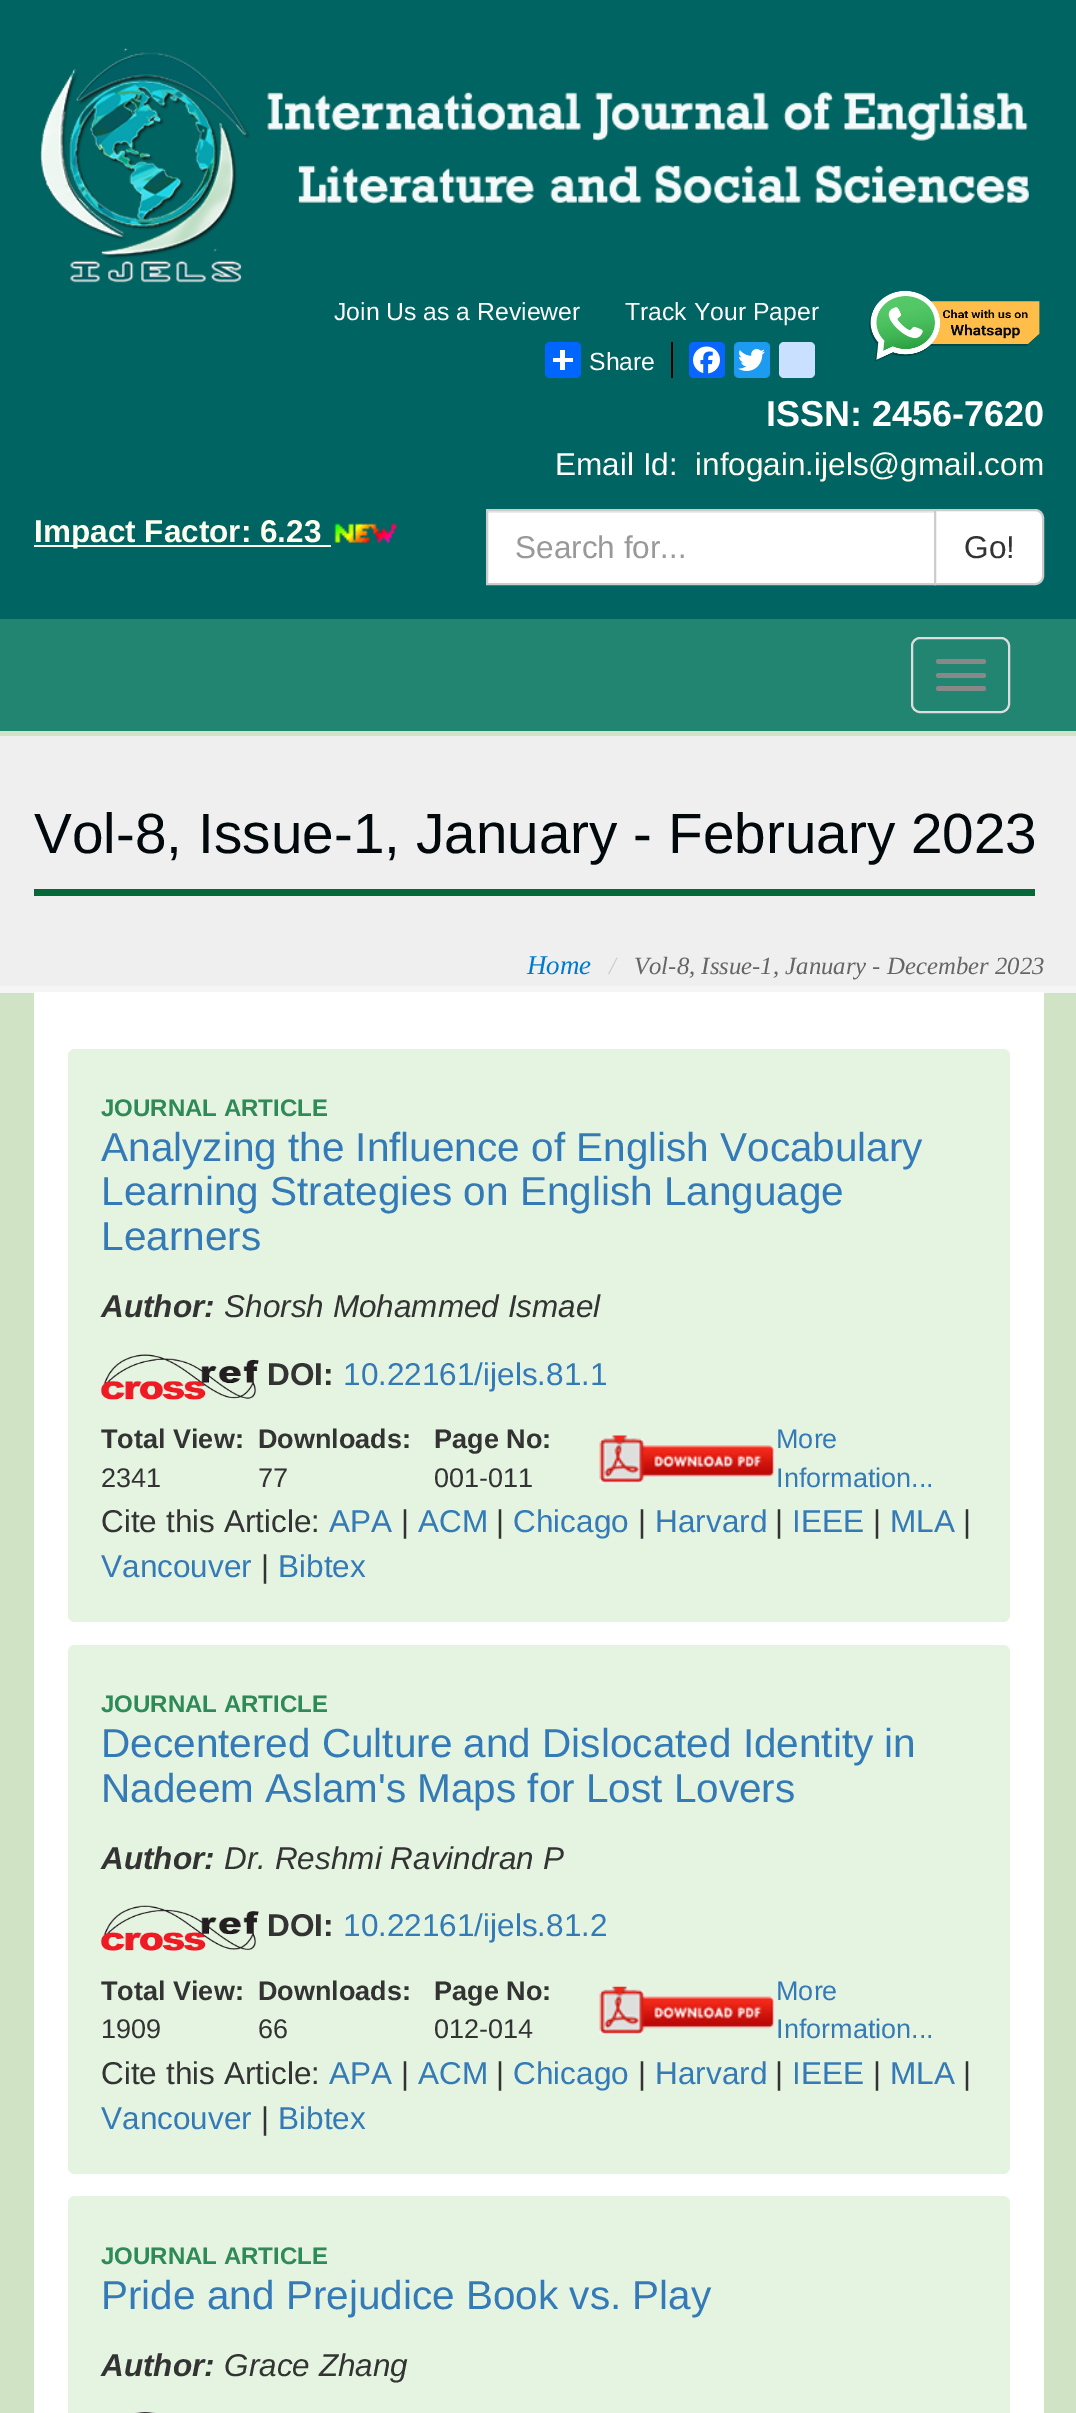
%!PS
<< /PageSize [1076 2413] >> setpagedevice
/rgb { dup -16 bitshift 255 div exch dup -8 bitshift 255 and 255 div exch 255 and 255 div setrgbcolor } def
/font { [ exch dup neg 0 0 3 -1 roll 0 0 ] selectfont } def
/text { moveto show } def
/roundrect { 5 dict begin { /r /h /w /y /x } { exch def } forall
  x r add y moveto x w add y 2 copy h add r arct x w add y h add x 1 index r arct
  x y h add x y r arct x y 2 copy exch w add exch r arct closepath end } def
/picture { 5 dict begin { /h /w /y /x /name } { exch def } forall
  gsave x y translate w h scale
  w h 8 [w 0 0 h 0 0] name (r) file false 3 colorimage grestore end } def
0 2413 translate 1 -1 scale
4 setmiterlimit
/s1 { /LiberationSans-Regular 24.75 font 16#FFFFFF rgb } def
/s2 { /LiberationSans-Bold 36 font 16#FFFFFF rgb } def
/s3 { /LiberationSans-Regular 31.5 font 16#FFFFFF rgb } def
/s4 { /LiberationSans-Regular 31.5 font 16#FFFFF0 rgb } def
/s5 { /LiberationSans-Bold 31.5 font 16#FFFFF0 rgb } def
/s6 { /LiberationSans-Regular 31.5 font 16#999999 rgb } def
/s7 { /LiberationSans-Regular 31.5 font 16#333333 rgb } def
/s8 { /LiberationSans-Regular 56.75 font 16#01090C rgb } def
/s9 { /LiberationSerif-Italic 27 font 16#007ACC rgb } def
/s10 { /LiberationSerif-Italic 24.75 font 16#CCCCCC rgb } def
/s11 { /LiberationSerif-Italic 24.75 font 16#656565 rgb } def
/s12 { /LiberationSans-Bold 24 font 16#2E8B57 rgb } def
/s13 { /LiberationSans-Regular 40.5 font 16#337AB7 rgb } def
/s14 { /LiberationSans-BoldItalic 31.5 font 16#333333 rgb } def
/s15 { /LiberationSans-Italic 31.5 font 16#333333 rgb } def
/s16 { /LiberationSans-Bold 31.5 font 16#333333 rgb } def
/s17 { /LiberationSans-Regular 31.5 font 16#337AB7 rgb } def
/s18 { /LiberationSans-Bold 27 font 16#333333 rgb } def
/s19 { /LiberationSans-Regular 27 font 16#333333 rgb } def
/s20 { /LiberationSans-Regular 27 font 16#337AB7 rgb } def
16#D0E3C5 rgb
0 0 1076 2413 rectfill
16#006462 rgb
0 0 1076 619 rectfill
(pic1.raw) 40 48 989 235 picture
s1
(Join Us as a Reviewer) 334 320 text
(Track Your Paper) 625 320 text
(pic2.raw) 869 290 171 72 picture
16#0166FF rgb
545 342 36 36 5 roundrect fill
16#FFFFFF rgb
560 350 5 20 rectfill
553 358 20 4 rectfill
(Share) 589 370 text
16#000000 rgb
671 342 2 36 rectfill
16#0866FF rgb
689 342 36 36 5 roundrect fill
(pic3.raw) 693 346 27 28 picture
16#1D9BF0 rgb
734 342 36 36 5 roundrect fill
(pic4.raw) 738 349 27 22 picture
16#CAE0FF rgb
779 342 36 36 5 roundrect fill
s2
(ISSN: 2456-7620) 766 426 text
s3
(Email Id:) 555 475 text
s4
(infogain.ijels@gmail.com) 695 475 text
34 545 297 2 rectfill
s5
(Impact Factor: 6.23) 34 542 text
(pic5.raw) 334 523 63 20 picture
16#FFFFFF rgb
488 513 446 70 rectfill
16#ECECEC rgb
488 511 446 2 rectfill
16#CCCCCC rgb
2 setlinewidth
487 510 448 74 rectstroke
s6
(Search for...) 515 558 text
16#FFFFFF rgb
935 510 moveto 1035 510 lineto 1039.5 510 1043 513.5 1043 518 curveto 1043 576 lineto 1043 580.5 1039.5 584 1035 584 curveto 935 584 lineto closepath gsave fill grestore
16#CCCCCC rgb
stroke
s7
(Go!) 964 558 text
16#218571 rgb
0 619 1076 112 rectfill
16#DDDDDD rgb
912 638 97 74 8 roundrect stroke
16#888888 rgb
936 659 50 5 2.5 roundrect fill
936 673 50 5 2.5 roundrect fill
936 686 50 5 2.5 roundrect fill
16#EFEFEF rgb
0 736 1076 250 rectfill
16#F5F5F5 rgb
0 986 1076 7 rectfill
16#056839 rgb
34 889 1001 7 rectfill
s8
(Vol-8, Issue-1, January - February 2023) 34 853 text
s9
(Home) 527 974 text
s10
(/) 609 974 text
s11
(Vol-8, Issue-1, January - December 2023) 634 974 text
16#FFFFFF rgb
34 992 1010 1421 rectfill
16#E5F4E1 rgb
68 1049 942 573 7 roundrect fill
s12
(JOURNAL ARTICLE) 101 1116 text
s13
(Analyzing the Influence of English Vocabulary) 101 1161 text
(Learning Strategies on English Language) 101 1205 text
(Learners) 101 1250 text
s14
(Author:) 101 1317 text
s15
(Shorsh Mohammed Ismael) 224 1317 text
(pic6.raw) 101 1354 158 46 picture
s16
(DOI:) 267 1385 text
s17
(10.22161/ijels.81.1) 343 1385 text
s18
(Total View:) 101 1448 text
s19
(2341) 101 1487 text
s18
(Downloads:) 258 1448 text
s19
(77) 258 1487 text
s18
(Page No:) 434 1448 text
s19
(001-011) 434 1487 text
(pic7.raw) 599 1435 176 49 picture
s20
(More) 776 1448 text
(Information...) 776 1487 text
s7
(Cite this Article:) 101 1532 text
s17
(APA) 329 1532 text
s7
(|) 401 1532 text
s17
(ACM) 418 1532 text
s7
(|) 496 1532 text
s17
(Chicago) 513 1532 text
s7
(|) 638 1532 text
s17
(Harvard) 655 1532 text
s7
(|) 775 1532 text
s17
(IEEE) 792 1532 text
s7
(|) 873 1532 text
s17
(MLA) 890 1532 text
s7
(|) 963 1532 text
s17
(Vancouver) 101 1577 text
s7
(|) 261 1577 text
s17
(Bibtex) 278 1577 text
16#E5F4E1 rgb
68 1645 942 529 7 roundrect fill
s12
(JOURNAL ARTICLE) 101 1712 text
s13
(Decentered Culture and Dislocated Identity in) 101 1757 text
(Nadeem Aslam's Maps for Lost Lovers) 101 1802 text
s14
(Author:) 101 1869 text
s15
(Dr. Reshmi Ravindran P) 224 1869 text
(pic8.raw) 101 1905 158 46 picture
s16
(DOI:) 267 1936 text
s17
(10.22161/ijels.81.2) 343 1936 text
s18
(Total View:) 101 2000 text
s19
(1909) 101 2038 text
s18
(Downloads:) 258 2000 text
s19
(66) 258 2038 text
s18
(Page No:) 434 2000 text
s19
(012-014) 434 2038 text
(pic9.raw) 599 1986 176 49 picture
s20
(More) 776 2000 text
(Information...) 776 2038 text
s7
(Cite this Article:) 101 2084 text
s17
(APA) 329 2084 text
s7
(|) 401 2084 text
s17
(ACM) 418 2084 text
s7
(|) 496 2084 text
s17
(Chicago) 513 2084 text
s7
(|) 638 2084 text
s17
(Harvard) 655 2084 text
s7
(|) 775 2084 text
s17
(IEEE) 792 2084 text
s7
(|) 873 2084 text
s17
(MLA) 890 2084 text
s7
(|) 963 2084 text
s17
(Vancouver) 101 2129 text
s7
(|) 261 2129 text
s17
(Bibtex) 278 2129 text
16#E5F4E1 rgb
68 2196 942 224 7 roundrect fill
s12
(JOURNAL ARTICLE) 101 2264 text
s13
(Pride and Prejudice Book vs. Play) 101 2309 text
s14
(Author:) 101 2376 text
s15
(Grace Zhang) 224 2376 text
(pic10.raw) 135 2412 21 1 picture
showpage
